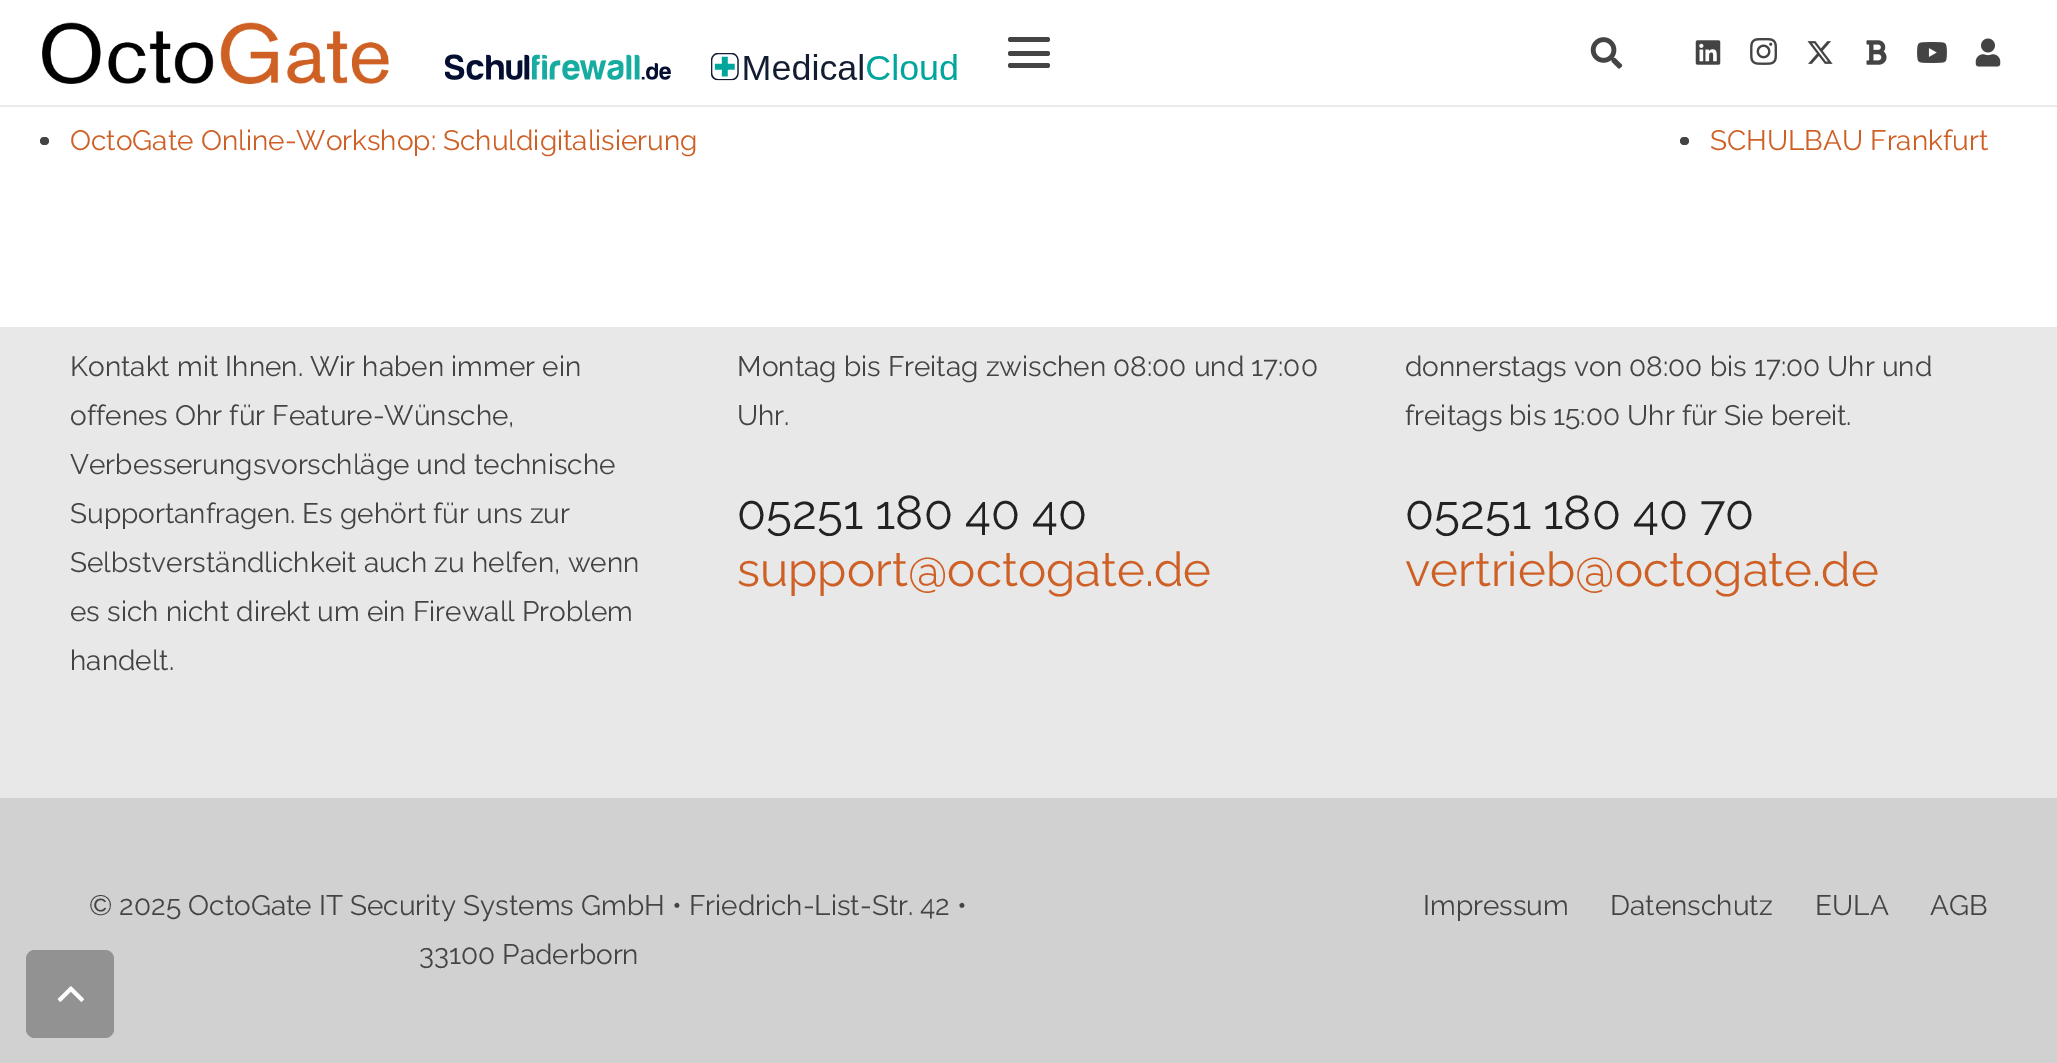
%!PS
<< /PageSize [2057 1063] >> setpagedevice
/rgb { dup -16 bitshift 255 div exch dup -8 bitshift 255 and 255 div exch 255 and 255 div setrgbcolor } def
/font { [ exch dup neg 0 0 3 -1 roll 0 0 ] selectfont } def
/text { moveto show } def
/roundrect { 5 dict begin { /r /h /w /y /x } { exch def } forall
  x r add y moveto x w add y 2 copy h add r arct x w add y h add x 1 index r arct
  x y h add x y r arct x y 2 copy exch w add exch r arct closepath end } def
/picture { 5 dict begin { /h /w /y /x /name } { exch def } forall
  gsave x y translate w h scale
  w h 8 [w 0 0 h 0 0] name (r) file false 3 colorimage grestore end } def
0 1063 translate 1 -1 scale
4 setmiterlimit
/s1 { /Raleway-Regular 28 font 16#CE6025 rgb } def
/s2 { /Raleway-Regular 28 font 16#444444 rgb } def
/s3 { /Raleway-Regular 47.5 font 16#222222 rgb } def
/s4 { /Raleway-Regular 47.5 font 16#CE6025 rgb } def
16#E8E8E8 rgb
0 0 2057 1063 rectfill
16#FFFFFF rgb
0 107 2057 220 rectfill
16#EBEBEB rgb
0 105 2057 2 rectfill
16#FFFFFF rgb
0 0 2057 105 rectfill
(pic1.raw) 42 22 347 62 picture
(pic2.raw) 445 54 226 26 picture
(pic3.raw) 711 53 246 28 picture
16#444444 rgb
1008 51 42 5 2.5 roundrect fill
1008 37 42 5 2.5 roundrect fill
1008 63 42 5 2.5 roundrect fill
(pic4.raw) 1590 37 33 32 picture
(pic5.raw) 1695 40 26 25 picture
(pic6.raw) 1750 38 27 27 picture
(pic7.raw) 1807 41 26 23 picture
(pic8.raw) 1866 40 21 25 picture
(pic9.raw) 1917 42 30 21 picture
(pic10.raw) 1975 38 26 29 picture
40 137 9 8 4 roundrect fill
s1
(OctoGate Online-Workshop: Schuldigitalisierung) 70 150 text
16#444444 rgb
1680 137 9 8 4 roundrect fill
s1
(SCHULBAU Frankfurt) 1710 150 text
s2
(Kontakt mit Ihnen. Wir haben immer ein) 70 376 text
(offenes Ohr für Feature-Wünsche,) 70 425 text
(Verbesserungsvorschläge und technische) 70 474 text
(Supportanfragen. Es gehört für uns zur) 70 523 text
(Selbstverständlichkeit auch zu helfen, wenn) 70 572 text
(es sich nicht direkt um ein Firewall Problem) 70 621 text
(handelt.) 70 670 text
(Montag bis Freitag zwischen 08:00 und 17:00) 737 376 text
(Uhr.) 737 425 text
s3
(05251 180 40 40) 737 529 text
s4
(support@octogate.de) 737 586 text
s2
(donnerstags von 08:00 bis 17:00 Uhr und) 1405 376 text
(freitags bis 15:00 Uhr für Sie bereit.) 1405 425 text
s3
(05251 180 40 70) 1405 529 text
s4
(vertrieb@octogate.de) 1405 586 text
16#D1D1D1 rgb
0 798 2057 265 rectfill
s2
(© 2025 OctoGate IT Security Systems GmbH • Friedrich-List-Str. 42 •) 89 915 text
(33100 Paderborn) 419 964 text
(Impressum) 1423 915 text
(Datenschutz) 1610 915 text
(EULA) 1815 915 text
(AGB) 1930 915 text
16#929292 rgb
26 950 88 88 9 roundrect fill
(pic11.raw) 57 986 27 16 picture
showpage
